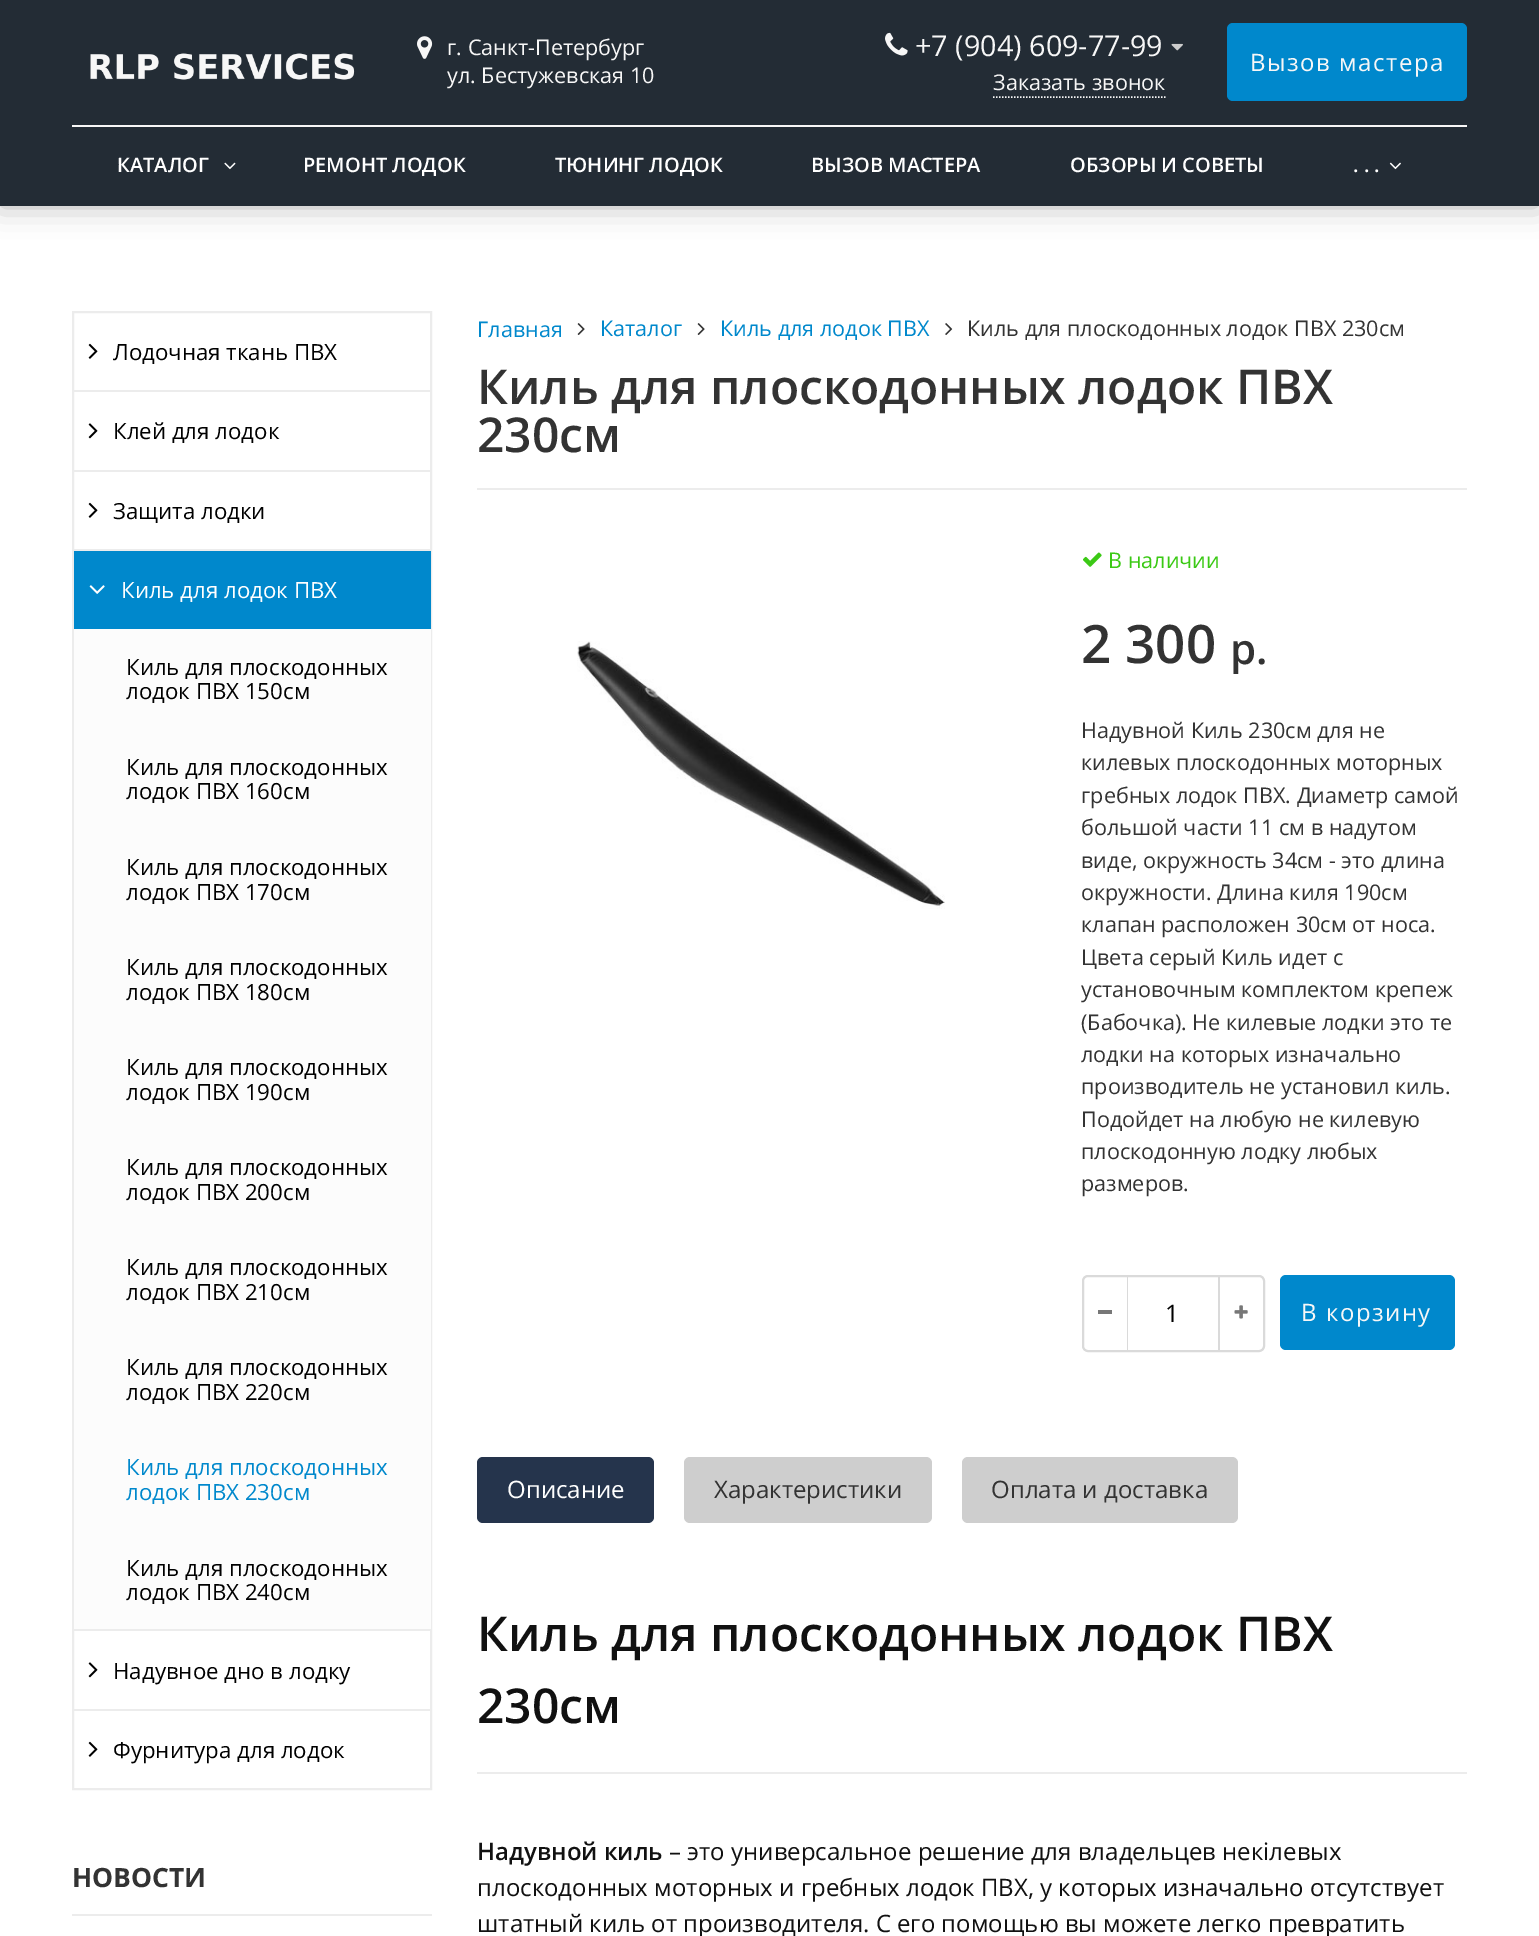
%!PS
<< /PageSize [1539 1936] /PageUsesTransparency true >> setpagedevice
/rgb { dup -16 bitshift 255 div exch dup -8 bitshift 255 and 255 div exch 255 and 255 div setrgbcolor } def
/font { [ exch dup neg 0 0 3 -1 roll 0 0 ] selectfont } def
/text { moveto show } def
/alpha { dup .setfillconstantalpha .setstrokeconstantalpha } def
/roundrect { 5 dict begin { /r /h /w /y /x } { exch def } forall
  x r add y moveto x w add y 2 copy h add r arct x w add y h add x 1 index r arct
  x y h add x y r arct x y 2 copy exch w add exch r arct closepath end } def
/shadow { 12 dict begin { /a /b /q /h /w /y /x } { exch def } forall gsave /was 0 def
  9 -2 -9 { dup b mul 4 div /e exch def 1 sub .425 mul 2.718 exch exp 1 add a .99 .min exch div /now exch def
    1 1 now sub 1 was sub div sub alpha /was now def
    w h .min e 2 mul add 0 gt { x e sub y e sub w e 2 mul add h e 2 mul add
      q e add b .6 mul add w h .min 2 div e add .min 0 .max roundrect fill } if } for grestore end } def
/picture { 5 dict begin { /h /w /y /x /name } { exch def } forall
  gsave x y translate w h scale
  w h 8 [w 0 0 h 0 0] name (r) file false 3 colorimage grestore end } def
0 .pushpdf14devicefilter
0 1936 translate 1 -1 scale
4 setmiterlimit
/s1 { /OpenSans-Regular 21.6 font 16#F7F7F7 rgb } def
/s2 { /OpenSans-Regular 28.75 font 16#F7F7F7 rgb } def
/s3 { /OpenSans-SemiBold 20 font 16#FFFFFF rgb } def
/s4 { /OpenSans-Regular 22.25 font 16#000000 rgb } def
/s5 { /OpenSans-Regular 22.25 font 16#FFFFFF rgb } def
/s6 { /OpenSans-Regular 22.25 font 16#0088CC rgb } def
/s7 { /OpenSans-Bold 26.5 font 16#333333 rgb } def
/s8 { /OpenSans-Regular 21.6 font 16#0088CC rgb } def
/s9 { /OpenSans-Regular 21.6 font 16#333333 rgb } def
/s10 { /OpenSans-SemiBold 48 font 16#333333 rgb } def
/s11 { /OpenSans-Regular 21.6 font 16#3BC915 rgb } def
/s12 { /OpenSans-SemiBold 53 font 16#333333 rgb } def
/s13 { /OpenSans-SemiBold 42 font 16#333333 rgb } def
/s14 { /OpenSans-Regular 24 font 16#000000 rgb } def
/s15 { /OpenSans-Regular 24 font 16#FFFFFF rgb } def
/s16 { /OpenSans-Regular 24 font 16#333333 rgb } def
/s17 { /OpenSans-SemiBold 48 font 16#111111 rgb } def
/s18 { /OpenSans-SemiBold 24 font 16#111111 rgb } def
/s19 { /OpenSans-Regular 24 font 16#111111 rgb } def
16#FFFFFF rgb
0 0 1539 1936 rectfill
16#000000 rgb
0 0 1539 206 0 15 0.3 shadow
16#232C35 rgb
0 0 1539 206 rectfill
(pic1.raw) 90 53 265 27 picture
(pic2.raw) 417 36 16 23 picture
s1
(г. Санкт-Петербург) 447 55 text
(ул. Бестужевская 10) 447 83 text
(pic3.raw) 885 32 23 24 picture
s2
(+7 \(904\) 609-77-99) 915 56 text
(pic4.raw) 1171 43 12 8 picture
s1
(Заказать звонок) 993 90 text
1.5 setlinewidth
[1.5 1.5] 0 setdash
993 97 moveto 1165.5 97 lineto stroke
16#0088CC rgb
1227 23 240 78 6 roundrect fill
/OpenSans-Regular 24 font
16#F7F7F7 rgb
1250 71 moveto 1.5 0 (Вызов мастера) ashow
72 125 1395 2 rectfill
s3
(КАТАЛОГ) 117 172 text
(pic5.raw) 224 162 12 8 picture
(РЕМОНТ ЛОДОК) 303 172 text
(ТЮНИНГ ЛОДОК) 555 172 text
(ВЫЗОВ МАСТЕРА) 811 172 text
(ОБЗОРЫ И СОВЕТЫ) 1070 172 text
(pic6.raw) 1389 162 12 8 picture
(. . .) 1353 172 text
16#ECECEC rgb
2 setlinewidth
[] 0 setdash
73 312 358 1477 rectstroke
74 390 357 2 rectfill
(pic7.raw) 88 343 10 16 picture
s4
(Лодочная ткань ПВХ) 113 360 text
16#ECECEC rgb
74 470 357 2 rectfill
(pic8.raw) 88 423 10 16 picture
s4
(Клей для лодок) 113 439 text
16#ECECEC rgb
74 549 357 2 rectfill
(pic7.raw) 88 502 10 16 picture
s4
(Защита лодки) 113 519 text
16#ECECEC rgb
74 1629 357 2 rectfill
16#0088CC rgb
74 551 357 78 rectfill
(pic9.raw) 89 585 16 9 picture
s5
(Киль для лодок ПВХ) 121 598 text
16#FCFCFC rgb
74 629 357 1000 rectfill
s4
(Киль для плоскодонных) 126 675 text
(лодок ПВХ 150см) 126 699 text
(Киль для плоскодонных) 126 775 text
(лодок ПВХ 160см) 126 799 text
(Киль для плоскодонных) 126 875 text
(лодок ПВХ 170см) 126 900 text
(Киль для плоскодонных) 126 975 text
(лодок ПВХ 180см) 126 1000 text
(Киль для плоскодонных) 126 1075 text
(лодок ПВХ 190см) 126 1100 text
(Киль для плоскодонных) 126 1175 text
(лодок ПВХ 200см) 126 1200 text
(Киль для плоскодонных) 126 1275 text
(лодок ПВХ 210см) 126 1300 text
(Киль для плоскодонных) 126 1375 text
(лодок ПВХ 220см) 126 1400 text
s6
(Киль для плоскодонных) 126 1475 text
(лодок ПВХ 230см) 126 1500 text
s4
(Киль для плоскодонных) 126 1576 text
(лодок ПВХ 240см) 126 1600 text
16#ECECEC rgb
74 1709 357 2 rectfill
(pic8.raw) 88 1662 10 16 picture
s4
(Надувное дно в лодку) 113 1679 text
(pic7.raw) 88 1741 10 16 picture
(Фурнитура для лодок) 113 1758 text
16#ECECEC rgb
72 1914 360 2 rectfill
s7
(НОВОСТИ) 72 1887 text
s8
(Главная) 477 337 text
(pic10.raw) 577 323 8 12 picture
(Каталог) 600 336 text
(pic10.raw) 697 323 8 12 picture
(Киль для лодок ПВХ) 720 336 text
(pic11.raw) 945 323 8 12 picture
s9
(Киль для плоскодонных лодок ПВХ 230см) 967 336 text
16#ECECEC rgb
477 488 990 2 rectfill
s10
(Киль для плоскодонных лодок ПВХ) 477 404 text
(230см) 477 452 text
(pic12.raw) 577 641 368 268 picture
(pic13.raw) 1083 552 19 15 picture
s11
(В наличии) 1108 568 text
s12
(2 300) 1081 663 text
s13
(р.) 1230 664 text
s9
(Надувной Киль 230см для не) 1081 738 text
(килевых плоскодонных моторных) 1081 770 text
(гребных лодок ПВХ. Диаметр самой) 1081 803 text
(большой части 11 см в надутом) 1081 835 text
(виде, окружность 34см - это длина) 1081 868 text
(окружности. Длина киля 190см) 1081 900 text
(клапан расположен 30см от носа.) 1081 932 text
(Цвета серый Киль идет с) 1081 965 text
(установочным комплектом крепеж) 1081 997 text
(\(Бабочка\). Не килевые лодки это те) 1081 1030 text
(лодки на которых изначально) 1081 1062 text
(производитель не установил киль.) 1081 1094 text
(Подойдет на любую не килевую) 1081 1127 text
(плоскодонную лодку любых) 1081 1159 text
(размеров.) 1081 1191 text
16#DADADA rgb
1083 1276 181 75 5 roundrect stroke
1127 1277 1 73 rectfill
16#777777 rgb
1098 1310 14 4 rectfill
s14
(1) 1165 1322 text
16#DADADA rgb
1218 1277 2 73 rectfill
(pic14.raw) 1234 1305 14 14 picture
16#0088CC rgb
1280 1275 175 75 6 roundrect fill
16#F7F7F7 rgb
1301 1321 moveto 1.5 0 (В корзину) ashow
16#25344C rgb
477 1457 177 66 6 roundrect fill
s15
(Описание) 507 1498 text
16#CECECE rgb
684 1457 248 66 6 roundrect fill
s16
(Характеристики) 714 1498 text
16#CECECE rgb
962 1457 276 66 6 roundrect fill
s16
(Оплата и доставка) 991 1498 text
16#ECECEC rgb
477 1772 990 2 rectfill
s17
(Киль для плоскодонных лодок ПВХ) 477 1651 text
(230см) 477 1723 text
s18
(Надувной киль) 477 1860 text
s19
(– это универсальное решение для владельцев некілевых) 669 1860 text
(плоскодонных моторных и гребных лодок ПВХ, у которых изначально отсутствует) 477 1896 text
(штатный киль от производителя. С его помощью вы можете легко превратить) 477 1932 text
.poppdf14devicefilter showpage
